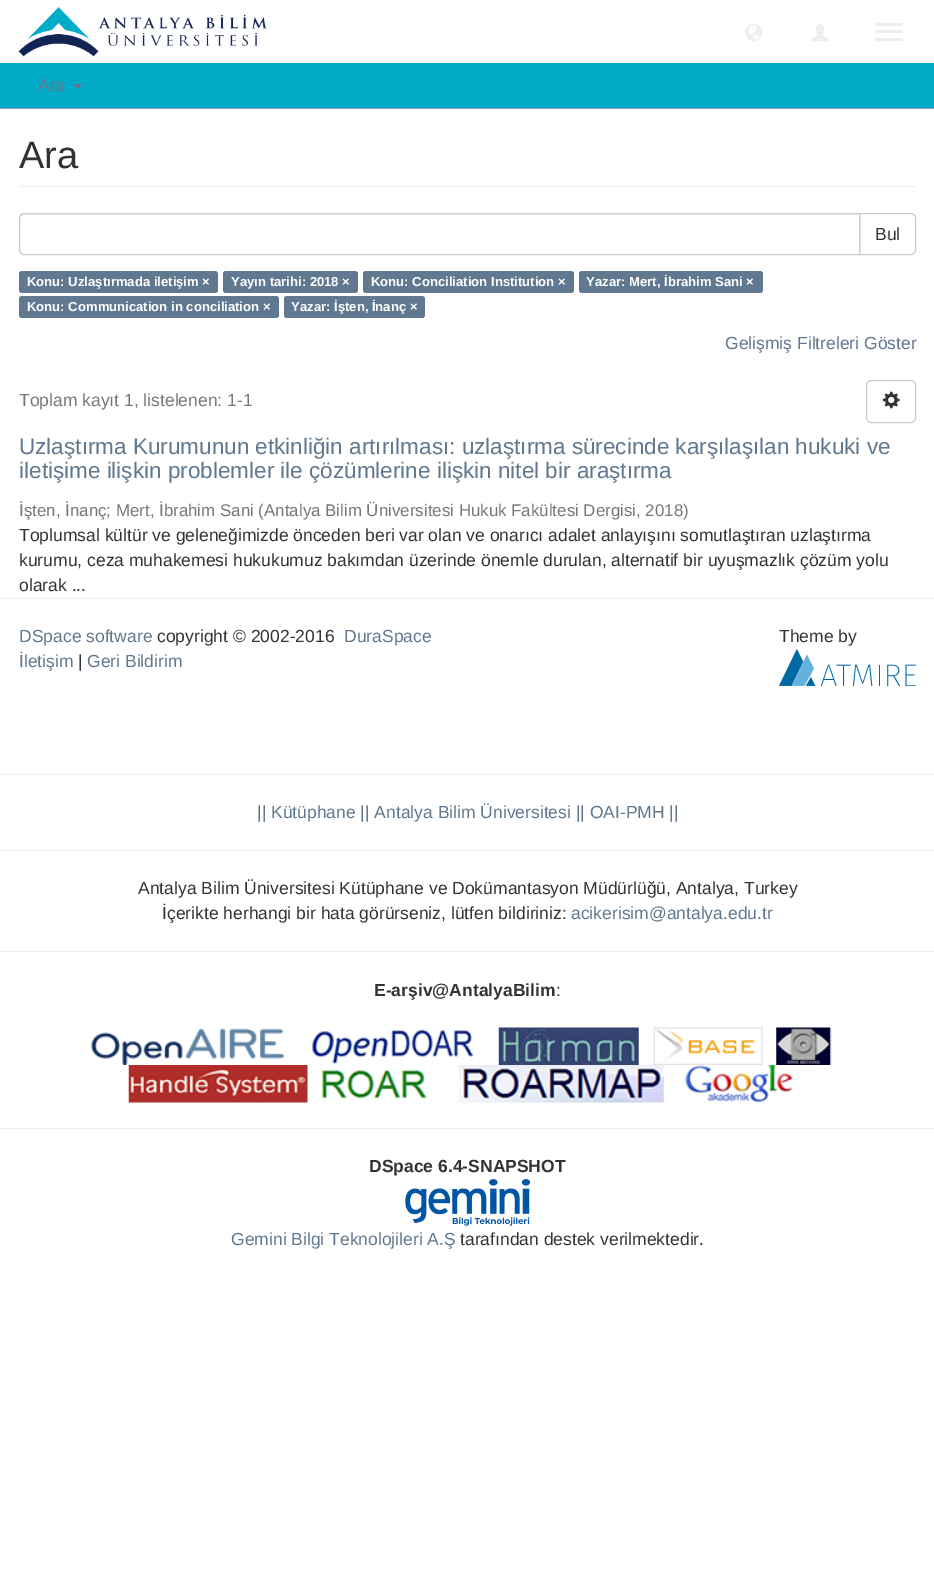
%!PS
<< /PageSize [934 1571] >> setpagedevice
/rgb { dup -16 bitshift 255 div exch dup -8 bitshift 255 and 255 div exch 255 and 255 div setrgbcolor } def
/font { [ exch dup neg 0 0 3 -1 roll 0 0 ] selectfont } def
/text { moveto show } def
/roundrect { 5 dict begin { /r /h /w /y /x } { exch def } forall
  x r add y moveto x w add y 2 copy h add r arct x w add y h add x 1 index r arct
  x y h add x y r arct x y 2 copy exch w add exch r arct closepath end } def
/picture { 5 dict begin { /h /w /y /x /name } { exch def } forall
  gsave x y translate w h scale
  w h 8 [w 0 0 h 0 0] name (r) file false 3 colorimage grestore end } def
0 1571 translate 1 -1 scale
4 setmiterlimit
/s1 { /LiberationSans-Regular 17.5 font 16#607890 rgb } def
/s2 { /LiberationSans-Regular 38 font 16#333333 rgb } def
/s3 { /LiberationSans-Regular 17.5 font 16#333333 rgb } def
/s4 { /LiberationSans-Bold 13.1 font 16#FFFFFF rgb } def
/s5 { /LiberationSans-Regular 17.5 font 16#777777 rgb } def
/s6 { /LiberationSans-Regular 22.5 font 16#607890 rgb } def
/s7 { /LiberationSans-Regular 16.9 font 16#777777 rgb } def
/s8 { /LiberationSans-Bold 17.5 font 16#333333 rgb } def
16#FFFFFF rgb
0 0 934 1571 rectfill
(pic1.raw) 18 7 250 50 picture
(pic2.raw) 745 24 18 17 picture
(pic3.raw) 811 24 18 18 picture
16#EEEEEE rgb
875 23 28 3 1.5 roundrect fill
875 30 28 3 1.5 roundrect fill
875 38 28 3 1.5 roundrect fill
16#01ABC8 rgb
0 63 934 45 rectfill
16#8B9EB2 rgb
0 108 934 1 rectfill
s1
(Ara) 38 91 text
72.5 84 moveto 82.5 84 lineto 77.5 89 lineto closepath fill
16#EEEEEE rgb
19 186 897 1 rectfill
s2
(Ara) 19 168 text
16#CCCCCC rgb
859.5 213.5 moveto 911 213.5 lineto 913.5 213.5 915.5 215.5 915.5 218 curveto 915.5 250 lineto 915.5 252.5 913.5 254.5 911 254.5 curveto 859.5 254.5 lineto closepath stroke
16#FFFFFF rgb
24 213 moveto 860 213 lineto 860 255 lineto 24 255 lineto 21 255 19 253 19 250 curveto 19 218 lineto 19 215 21 213 24 213 curveto closepath fill
16#ECECEC rgb
24 215 moveto 859 215 lineto 859 214 lineto 24 214 lineto 21 214 20 216 20 219 curveto 20 217 22 215 24 215 curveto closepath fill
16#CCCCCC rgb
24 213.5 moveto 859.5 213.5 lineto 859.5 254.5 lineto 24 254.5 lineto 21.5 254.5 19.5 252.5 19.5 250 curveto 19.5 218 lineto 19.5 215.5 21.5 213.5 24 213.5 curveto closepath stroke
s3
(Bul) 875 240 text
16#607890 rgb
19 271 199 22 3 roundrect fill
s4
(Konu: Uzlaştırmada iletişim ×) 27 286 text
16#607890 rgb
223 271 135 22 3 roundrect fill
s4
(Yayın tarihi: 2018 ×) 231 286 text
16#607890 rgb
363 271 211 22 3 roundrect fill
s4
(Konu: Conciliation Institution ×) 371 286 text
16#607890 rgb
579 271 184 22 3 roundrect fill
s4
(Yazar: Mert, İbrahim Sani ×) 586 286 text
16#607890 rgb
19 296 260 22 3 roundrect fill
s4
(Konu: Communication in conciliation ×) 27 311 text
16#607890 rgb
284 296 141 22 3 roundrect fill
s4
(Yazar: İşten, İnanç ×) 291 311 text
s1
(Gelişmiş Filtreleri Göster) 725 349 text
s5
(Toplam kayıt 1, listelenen: 1-1) 19 406 text
16#CCCCCC rgb
866.5 380.5 49 42 4.5 roundrect stroke
(pic4.raw) 882 391 18 18 picture
s6
(Uzlaştırma Kurumunun etkinliğin artırılması: uzlaştırma sürecinde karşılaşılan hukuki ve) 19 454 text
(iletişime ilişkin problemler ile çözümlerine ilişkin nitel bir araştırma) 19 478 text
s7
(İşten, İnanç; Mert, İbrahim Sani \(Antalya Bilim Üniversitesi Hukuk Fakültesi Dergisi, 2018\)) 19 516 text
s3
(Toplumsal kültür ve geleneğimizde önceden beri var olan ve onarıcı adalet anlayışını somutlaştıran uzlaştırma) 19 541 text
(kurumu, ceza muhakemesi hukukumuz bakımdan üzerinde önemle durulan, alternatif bir uyuşmazlık çözüm yolu) 19 566 text
(olarak ...) 19 591 text
16#EEEEEE rgb
0 598 934 1 rectfill
s1
(DSpace software) 19 642 text
s3
(copyright © 2002-2016) 157 642 text
s1
(DuraSpace) 344 642 text
(İletişim) 19 667 text
s3
(|) 78 667 text
s1
(Geri Bildirim) 87 667 text
s3
(Theme by) 779 642 text
(pic5.raw) 779 649 137 37 picture
16#EEEEEE rgb
0 774 934 1 rectfill
s1
(|| Kütüphane || Antalya Bilim Üniversitesi || OAI-PMH ||) 257 818 text
16#EEEEEE rgb
0 850 934 1 rectfill
s3
(Antalya Bilim Üniversitesi Kütüphane ve Dokümantasyon Müdürlüğü, Antalya, Turkey) 138 894 text
(İçerikte herhangi bir hata görürseniz, lütfen bildiriniz:) 162 919 text
s1
(acikerisim@antalya.edu.tr) 571 919 text
16#EEEEEE rgb
0 951 934 1 rectfill
s8
(E-arşiv@AntalyaBilim) 374 996 text
s3
(:) 556 996 text
(pic6.raw) 91 1028 193 37 picture
(pic7.raw) 311 1029 163 35 picture
(pic8.raw) 498 1027 141 38 picture
(pic9.raw) 653 1027 110 38 picture
(pic10.raw) 776 1027 56 38 picture
(pic11.raw) 128 1065 180 38 picture
(pic12.raw) 321 1069 106 30 picture
(pic13.raw) 458 1065 206 38 picture
(pic14.raw) 685 1065 108 38 picture
16#EEEEEE rgb
0 1128 934 1 rectfill
s8
(DSpace 6.4-SNAPSHOT) 369 1172 text
(pic15.raw) 405 1178 125 48 picture
s1
(Gemini Bilgi Teknolojileri A.Ş) 231 1245 text
s3
(tarafından destek verilmektedir.) 460 1245 text
showpage
